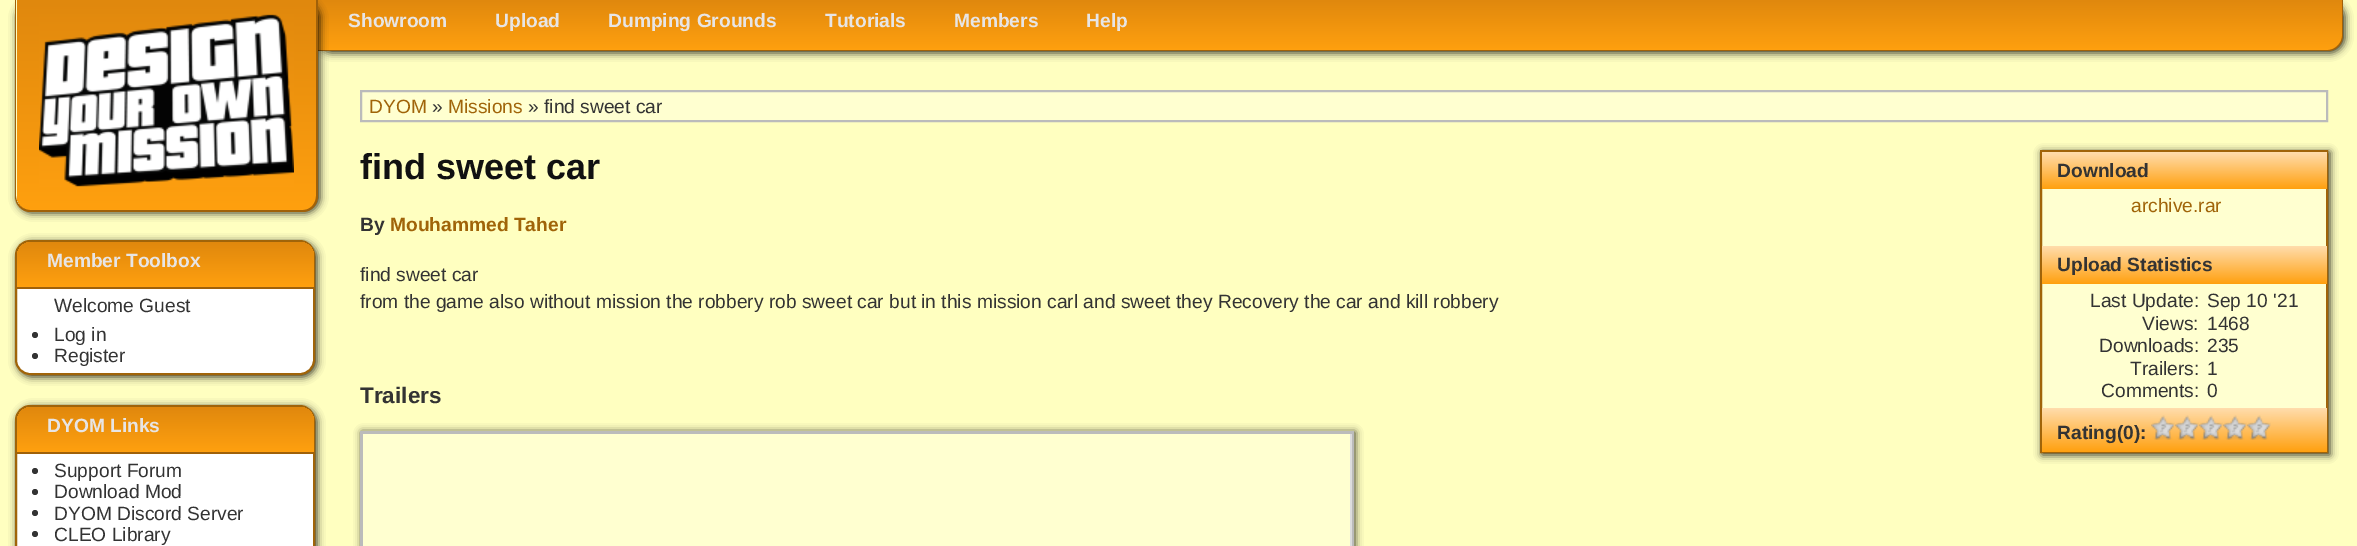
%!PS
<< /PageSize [2357 546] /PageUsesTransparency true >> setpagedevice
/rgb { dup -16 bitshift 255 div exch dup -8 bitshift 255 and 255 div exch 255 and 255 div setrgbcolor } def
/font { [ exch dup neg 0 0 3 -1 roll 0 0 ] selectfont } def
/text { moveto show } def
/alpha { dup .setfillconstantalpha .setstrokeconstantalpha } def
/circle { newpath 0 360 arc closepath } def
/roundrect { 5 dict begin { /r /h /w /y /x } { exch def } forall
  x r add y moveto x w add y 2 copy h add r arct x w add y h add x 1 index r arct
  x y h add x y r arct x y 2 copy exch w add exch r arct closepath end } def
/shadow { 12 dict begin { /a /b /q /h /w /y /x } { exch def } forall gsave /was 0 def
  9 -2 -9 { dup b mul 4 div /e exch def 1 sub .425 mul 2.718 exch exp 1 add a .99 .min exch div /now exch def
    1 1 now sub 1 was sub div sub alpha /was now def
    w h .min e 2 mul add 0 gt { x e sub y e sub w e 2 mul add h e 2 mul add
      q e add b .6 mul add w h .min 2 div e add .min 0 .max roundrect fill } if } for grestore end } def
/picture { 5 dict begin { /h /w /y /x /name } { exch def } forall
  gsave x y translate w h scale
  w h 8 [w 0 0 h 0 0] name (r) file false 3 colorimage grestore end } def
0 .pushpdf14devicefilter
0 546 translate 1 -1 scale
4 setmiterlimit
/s1 { /LiberationSans-Bold 19.2 font 16#E7E5E5 rgb } def
/s2 { /LiberationSans-Regular 19.2 font 16#333333 rgb } def
/s3 { /LiberationSans-Regular 19.2 font 16#A06409 rgb } def
/s4 { /LiberationSans-Bold 36 font 16#111111 rgb } def
/s5 { /LiberationSans-Bold 19.2 font 16#333333 rgb } def
/s6 { /LiberationSans-Bold 19.2 font 16#A06409 rgb } def
/s7 { /LiberationSans-Bold 22.5 font 16#333333 rgb } def
16#FFFFC0 rgb
0 0 2357 546 rectfill
16#000000 rgb
317 2 2028 51 15 4 0.8 shadow
gsave 315 0 moveto 2342 0 lineto 2342 36 lineto 2342 43.5 2335.5 50 2328 50 curveto 315 50 lineto closepath clip newpath
<< /ShadingType 2 /ColorSpace /DeviceRGB /Coords [315 0 315 50] /Extend [true true] /Function << /FunctionType 2 /Domain [0 1] /C0 [0.878 0.533 0.051] /C1 [1 0.627 0.059] /N 1 >> >> shfill grestore
16#A06109 rgb
315 0 moveto 2343 0 lineto 2343 36 lineto 2343 44 2336 51 2328 51 curveto 315 51 lineto closepath 315 0 moveto 2342 0 lineto 2342 36 lineto 2342 43 2335 50 2328 50 curveto 315 50 lineto closepath eofill
gsave
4 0 moveto 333 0 lineto 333 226 lineto 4 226 lineto closepath 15 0 moveto 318 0 lineto 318 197 lineto 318 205.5 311.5 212 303 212 curveto 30 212 lineto 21.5 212 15 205.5 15 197 curveto closepath eoclip newpath
16#000000 rgb
17 2 303 211 15 4 0.8 shadow
grestore
gsave 17 0 moveto 317 0 lineto 317 196 lineto 317 203.5 310.5 210 303 210 curveto 31 210 lineto 23.5 210 17 203.5 17 196 curveto closepath clip newpath
<< /ShadingType 2 /ColorSpace /DeviceRGB /Coords [17 0 17 210] /Extend [true true] /Function << /FunctionType 2 /Domain [0 1] /C0 [0.878 0.533 0.051] /C1 [1 0.627 0.059] /N 1 >> >> shfill grestore
15 0 moveto 318 0 lineto 318 196 lineto 318 205 311 212 303 212 curveto 30 212 lineto 22 212 15 205 15 196 curveto closepath 16 0 moveto 316 0 lineto 316 196 lineto 316 204 310 210 303 210 curveto 30 210 lineto 23 210 16 204 16 196 curveto closepath eofill
(pic1.raw) 39 14 255 173 picture
s1
(Showroom) 348 27 text
(Upload) 495 27 text
(Dumping Grounds) 608 27 text
(Tutorials) 825 27 text
(Members) 954 27 text
(Help) 1086 27 text
16#000000 rgb
17 242 300 135 15 4 0.8 shadow
16#FFFFFF rgb
16 241 298 133 14 roundrect gsave fill grestore
16#A06409 rgb
2 setlinewidth
stroke
gsave 31 242 moveto 300 242 lineto 307.5 242 314 248.5 314 256 curveto 314 287 lineto 17 287 lineto 17 256 lineto 17 248.5 23.5 242 31 242 curveto closepath clip newpath
<< /ShadingType 2 /ColorSpace /DeviceRGB /Coords [17 242 17 287] /Extend [true true] /Function << /FunctionType 2 /Domain [0 1] /C0 [0.878 0.533 0.051] /C1 [1 0.627 0.059] /N 1 >> >> shfill grestore
16#A06109 rgb
17 287 297 2 rectfill
s1
(Member Toolbox) 47 267 text
s2
(Welcome Guest) 54 312 text
35 335 3 circle fill
(Log in) 54 341 text
35 356 3 circle fill
(Register) 54 362 text
16#000000 rgb
17 407 300 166 15 4 0.8 shadow
16#FFFFFF rgb
16 406 298 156 14 roundrect gsave fill grestore
16#A06409 rgb
stroke
gsave 31 407 moveto 300 407 lineto 307.5 407 314 413.5 314 421 curveto 314 452 lineto 17 452 lineto 17 421 lineto 17 413.5 23.5 407 31 407 curveto closepath clip newpath
<< /ShadingType 2 /ColorSpace /DeviceRGB /Coords [17 407 17 452] /Extend [true true] /Function << /FunctionType 2 /Domain [0 1] /C0 [0.878 0.533 0.051] /C1 [1 0.627 0.059] /N 1 >> >> shfill grestore
16#A06109 rgb
17 452 297 2 rectfill
s1
(DYOM Links) 47 432 text
16#333333 rgb
35 471 3 circle fill
s2
(Support Forum) 54 477 text
35 492 3 circle fill
(Download Mod) 54 498 text
35 513 3 circle fill
(DYOM Discord Server) 54 520 text
35 534 3 circle fill
(CLEO Library) 54 541 text
16#FFFFD0 rgb
361 91 moveto 2327 91 lineto 2327 121 lineto 361 121 lineto closepath gsave fill grestore
16#BBBBBB rgb
stroke
s3
(DYOM) 369 113 text
s2
(») 432 113 text
s3
(Missions) 448 113 text
s2
(» find sweet car) 528 113 text
s4
(find sweet car) 360 179 text
16#000000 rgb
2042 152 288 303 0 4 0.8 shadow
16#FFFFD0 rgb
2042 189 284 219 rectfill
16#A06409 rgb
2041 151 286 301 rectstroke
gsave 2042 152 moveto 2327 152 lineto 2327 189 lineto 2042 189 lineto closepath clip newpath
<< /ShadingType 2 /ColorSpace /DeviceRGB /Coords [2042 152 2042 189] /Extend [true true] /Function << /FunctionType 2 /Domain [0 1] /C0 [1 0.867 0.678] /C1 [1 0.627 0.059] /N 1 >> >> shfill grestore
s5
(Download) 2057 177 text
s3
(archive.rar) 2131 212 text
gsave 2042 246 moveto 2327 246 lineto 2327 284 lineto 2042 284 lineto closepath clip newpath
<< /ShadingType 2 /ColorSpace /DeviceRGB /Coords [2042 246 2042 284] /Extend [true true] /Function << /FunctionType 2 /Domain [0 1] /C0 [1 0.867 0.678] /C1 [1 0.627 0.059] /N 1 >> >> shfill grestore
s5
(Upload Statistics) 2057 271 text
s2
(Last Update:) 2090 307 text
(Sep 10 '21) 2207 307 text
(Views:) 2142 330 text
(1468) 2207 330 text
(Downloads:) 2099 352 text
(235) 2207 352 text
(Trailers:) 2130 375 text
(1) 2207 375 text
(Comments:) 2101 397 text
(0) 2207 397 text
gsave 2042 408 moveto 2327 408 lineto 2327 452 lineto 2042 452 lineto closepath clip newpath
<< /ShadingType 2 /ColorSpace /DeviceRGB /Coords [2042 408 2042 452] /Extend [true true] /Function << /FunctionType 2 /Domain [0 1] /C0 [1 0.867 0.678] /C1 [1 0.627 0.059] /N 1 >> >> shfill grestore
s5
(Rating\(0\):) 2057 439 text
(pic2.raw) 2151 415 24 25 picture
(pic2.raw) 2175 415 24 25 picture
(pic2.raw) 2199 415 24 25 picture
(pic2.raw) 2223 415 24 25 picture
(pic2.raw) 2247 415 24 25 picture
(By) 360 231 text
s6
(Mouhammed Taher) 390 231 text
s2
(find sweet car) 360 281 text
(from the game also without mission the robbery rob sweet car but in this mission carl and sweet they Recovery the car and kill robbery) 360 308 text
s7
(Trailers) 360 403 text
16#000000 rgb
362 432 993 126 0 4 0.8 shadow
16#BBBBBB rgb
360 431 993 3 rectfill
1352 431 2 115 rectfill
360 431 3 115 rectfill
16#FFFFD0 rgb
363 434 987 112 rectfill
16#DDDDDD rgb
1350 434 2 112 rectfill
.poppdf14devicefilter showpage
